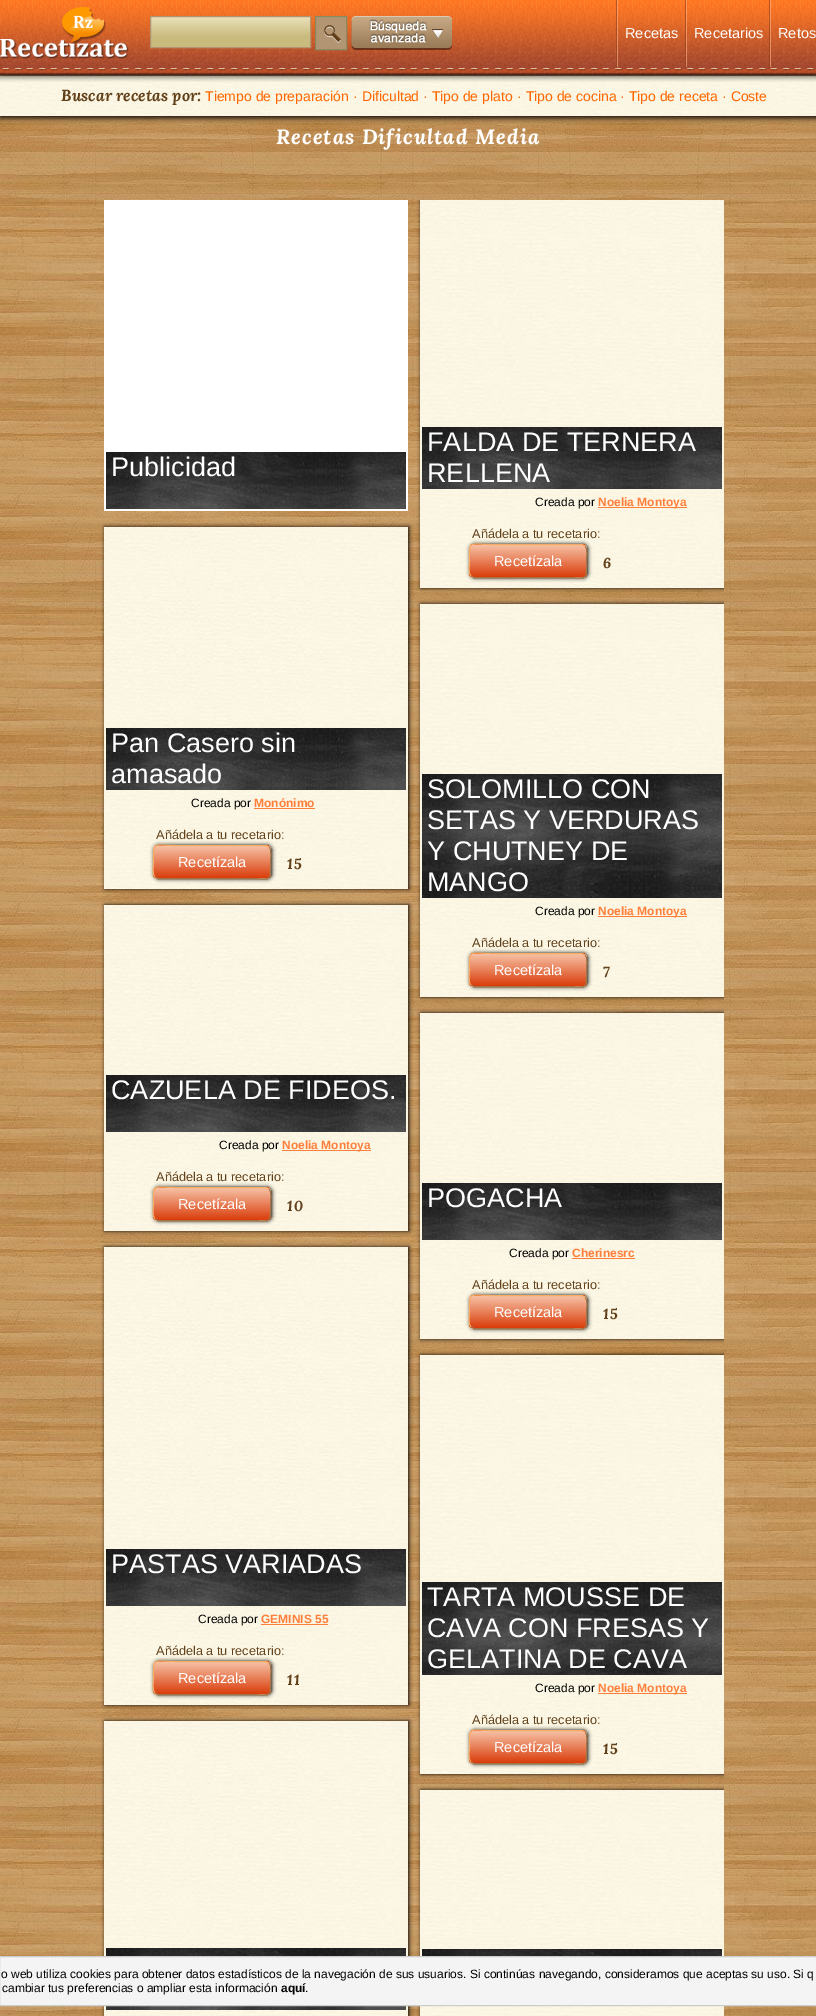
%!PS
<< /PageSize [816 2016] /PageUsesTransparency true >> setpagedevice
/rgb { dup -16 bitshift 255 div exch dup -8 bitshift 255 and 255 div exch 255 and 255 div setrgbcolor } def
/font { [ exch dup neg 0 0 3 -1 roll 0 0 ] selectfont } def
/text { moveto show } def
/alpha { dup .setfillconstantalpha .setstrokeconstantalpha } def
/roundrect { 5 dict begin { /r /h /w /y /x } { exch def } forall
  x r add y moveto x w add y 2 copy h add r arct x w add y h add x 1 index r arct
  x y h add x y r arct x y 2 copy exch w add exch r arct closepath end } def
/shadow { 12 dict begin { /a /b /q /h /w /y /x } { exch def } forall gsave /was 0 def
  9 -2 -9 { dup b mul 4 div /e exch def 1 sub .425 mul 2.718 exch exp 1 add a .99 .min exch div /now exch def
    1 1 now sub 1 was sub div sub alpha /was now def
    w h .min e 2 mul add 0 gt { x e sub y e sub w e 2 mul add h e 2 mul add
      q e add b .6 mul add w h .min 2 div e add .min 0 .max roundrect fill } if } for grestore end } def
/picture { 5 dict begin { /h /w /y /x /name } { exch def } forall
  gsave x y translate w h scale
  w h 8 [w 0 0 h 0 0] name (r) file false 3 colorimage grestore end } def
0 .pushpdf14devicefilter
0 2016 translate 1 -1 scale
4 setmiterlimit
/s1 { /LiberationSans-Regular 14.5 font 16#FFFFFF rgb } def
/s2 { /Lora-BoldItalic 16 font 16#61401A rgb } def
/s3 { /LiberationSans-Regular 14 font 16#FF6600 rgb } def
/s4 { /LiberationSans-Regular 27 font 16#FFFFFF rgb } def
/s5 { /LiberationSans-Regular 12 font 16#000000 rgb } def
/s6 { /LiberationSans-Bold 12 font 16#FF7E3A rgb } def
/s7 { /LiberationSans-Regular 12.75 font 16#61401A rgb } def
/s8 { /LiberationSans-Bold 12 font 16#000000 rgb } def
16#FFFFFF rgb
0 0 816 2016 rectfill
(pic1.raw) 0 75 816 1941 picture
16#000000 rgb
0 78 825 40 0 3 1 shadow
(pic9.raw) 0 76 816 40 picture
(pic2.raw) 0 0 816 82 picture
(pic3.raw) 0 7 129 52 picture
gsave 151 17 moveto 310 17 lineto 310 47 lineto 151 47 lineto closepath clip newpath
<< /ShadingType 2 /ColorSpace /DeviceRGB /Coords [151 47 151 17] /Extend [true true] /Function << /FunctionType 3 /Domain [0 1] /Functions [<< /FunctionType 2 /Domain [0 1] /C0 [0.788 0.733 0.494] /C1 [0.788 0.733 0.494] /N 1 >> << /FunctionType 2 /Domain [0 1] /C0 [0.788 0.733 0.494] /C1 [0.918 0.882 0.729] /N 1 >>] /Bounds [0.34] /Encode [0 1 0 1] >> >> shfill grestore
16#B29472 rgb
150.5 16.5 160 31 rectstroke
16#B29573 rgb
315.5 16.5 moveto 346.5 16.5 lineto 346.5 49.5 lineto 315.5 49.5 lineto closepath gsave fill grestore
16#8A8A62 rgb
stroke
(pic4.raw) 324 25 17 18 picture
(pic5.raw) 351 16 101 34 picture
(pic6.raw) 616 0 2 67 picture
s1
(Recetas) 625 38 text
(pic7.raw) 685 0 2 67 picture
(Recetarios) 694 38 text
(pic8.raw) 769 0 2 67 picture
(Retos) 778 38 text
s2
(Buscar recetas por:) 61 101 text
s3
(Tiempo de preparación) 205 101 text
(· Dificultad) 353 101 text
(· Tipo de plato) 423 101 text
(· Tipo de cocina) 517 101 text
(· Tipo de receta) 620 101 text
(· Coste) 722 101 text
/Lora-BoldItalic 20.75 font
16#FFFFFF rgb
276 144 moveto 1 0 (Recetas Dificultad Media) ashow
104 200 304 311 rectfill
(pic10.raw) 106 452 300 57 picture
s4
(Publicidad) 111 476 text
gsave
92 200 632 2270 rectclip
16#000000 rgb
421 200 304 388 0 2 1 shadow
grestore
(pic11.raw) 420 200 304 388 picture
(pic12.raw) 422 427 300 62 picture
(FALDA DE TERNERA) 427 451 text
(RELLENA) 427 482 text
s5
(Creada por) 535 506 text
16#FF7E3A rgb
598 507 89 1 rectfill
s6
(Noelia Montoya) 598 506 text
s7
(Añádela a tu recetario:) 472 538 text
16#000000 rgb
470 544 118 34 5 2 1 shadow
gsave
469 544 118 34 5 roundrect clip newpath
gsave 469 544 moveto 587 544 lineto 587 545 lineto 469 545 lineto closepath clip newpath
<< /ShadingType 2 /ColorSpace /DeviceRGB /Coords [528 513 528 545] /Extend [true true] /Function << /FunctionType 2 /Domain [0 1] /C0 [0.965 0.757 0.647] /C1 [0.855 0.239 0.043] /N 1 >> >> shfill grestore
gsave 469 545 moveto 587 545 lineto 587 577 lineto 469 577 lineto closepath clip newpath
<< /ShadingType 2 /ColorSpace /DeviceRGB /Coords [528 545 528 577] /Extend [true true] /Function << /FunctionType 2 /Domain [0 1] /C0 [0.965 0.757 0.647] /C1 [0.855 0.239 0.043] /N 1 >> >> shfill grestore
gsave 469 577 moveto 587 577 lineto 587 578 lineto 469 578 lineto closepath clip newpath
<< /ShadingType 2 /ColorSpace /DeviceRGB /Coords [528 577 528 609] /Extend [true true] /Function << /FunctionType 2 /Domain [0 1] /C0 [0.965 0.757 0.647] /C1 [0.855 0.239 0.043] /N 1 >> >> shfill grestore
grestore
16#A47243 rgb
585 546 moveto 588 548.5 586.5 557.5 586.5 561 curveto 586.5 582 588 577.5 564 577.5 curveto 474 577.5 lineto 471 576 lineto stroke
16#F6AB64 rgb
471 576 moveto 468 573.5 469.5 564.5 469.5 561 curveto 469.5 540 468 544.5 492 544.5 curveto 582 544.5 lineto 585 546 lineto stroke
s1
(Recetízala) 494 566 text
/Lora-BoldItalic 14.5 font
16#61401A rgb
603 568 moveto 1 0 (6) ashow
16#000000 rgb
105 527 304 362 0 2 1 shadow
(pic13.raw) 104 527 304 362 picture
(pic12.raw) 106 728 300 62 picture
s4
(Pan Casero sin) 111 752 text
(amasado) 111 783 text
s5
(Creada por) 191 807 text
s6
(Monónimo) 254 807 text
254 808 61 1 rectfill
s7
(Añádela a tu recetario:) 156 839 text
16#000000 rgb
154 845 118 34 5 2 1 shadow
gsave
153 845 118 34 5 roundrect clip newpath
gsave 153 845 moveto 271 845 lineto 271 846 lineto 153 846 lineto closepath clip newpath
<< /ShadingType 2 /ColorSpace /DeviceRGB /Coords [212 814 212 846] /Extend [true true] /Function << /FunctionType 2 /Domain [0 1] /C0 [0.965 0.757 0.647] /C1 [0.855 0.239 0.043] /N 1 >> >> shfill grestore
gsave 153 846 moveto 271 846 lineto 271 878 lineto 153 878 lineto closepath clip newpath
<< /ShadingType 2 /ColorSpace /DeviceRGB /Coords [212 846 212 878] /Extend [true true] /Function << /FunctionType 2 /Domain [0 1] /C0 [0.965 0.757 0.647] /C1 [0.855 0.239 0.043] /N 1 >> >> shfill grestore
gsave 153 878 moveto 271 878 lineto 271 879 lineto 153 879 lineto closepath clip newpath
<< /ShadingType 2 /ColorSpace /DeviceRGB /Coords [212 878 212 910] /Extend [true true] /Function << /FunctionType 2 /Domain [0 1] /C0 [0.965 0.757 0.647] /C1 [0.855 0.239 0.043] /N 1 >> >> shfill grestore
grestore
16#A47243 rgb
269 847 moveto 272 849.5 270.5 858.5 270.5 862 curveto 270.5 883 272 878.5 248 878.5 curveto 158 878.5 lineto 155 877 lineto stroke
16#F6AB64 rgb
155 877 moveto 152 874.5 153.5 865.5 153.5 862 curveto 153.5 841 152 845.5 176 845.5 curveto 266 845.5 lineto 269 847 lineto stroke
s1
(Recetízala) 178 867 text
/Lora-BoldItalic 14.5 font
16#61401A rgb
287 869 moveto 1 0 (15) ashow
gsave
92 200 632 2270 rectclip
16#000000 rgb
421 604 304 393 0 2 1 shadow
grestore
(pic14.raw) 420 604 304 393 picture
(pic15.raw) 422 774 300 124 picture
s4
(SOLOMILLO CON) 427 798 text
(SETAS Y VERDURAS) 427 829 text
(Y CHUTNEY DE) 427 860 text
(MANGO) 427 891 text
s5
(Creada por) 535 915 text
16#FF7E3A rgb
598 916 89 1 rectfill
s6
(Noelia Montoya) 598 915 text
s7
(Añádela a tu recetario:) 472 947 text
16#000000 rgb
470 953 118 34 5 2 1 shadow
gsave
469 953 118 34 5 roundrect clip newpath
gsave 469 953 moveto 587 953 lineto 587 954 lineto 469 954 lineto closepath clip newpath
<< /ShadingType 2 /ColorSpace /DeviceRGB /Coords [528 922 528 954] /Extend [true true] /Function << /FunctionType 2 /Domain [0 1] /C0 [0.965 0.757 0.647] /C1 [0.855 0.239 0.043] /N 1 >> >> shfill grestore
gsave 469 954 moveto 587 954 lineto 587 986 lineto 469 986 lineto closepath clip newpath
<< /ShadingType 2 /ColorSpace /DeviceRGB /Coords [528 954 528 986] /Extend [true true] /Function << /FunctionType 2 /Domain [0 1] /C0 [0.965 0.757 0.647] /C1 [0.855 0.239 0.043] /N 1 >> >> shfill grestore
gsave 469 986 moveto 587 986 lineto 587 987 lineto 469 987 lineto closepath clip newpath
<< /ShadingType 2 /ColorSpace /DeviceRGB /Coords [528 986 528 1018] /Extend [true true] /Function << /FunctionType 2 /Domain [0 1] /C0 [0.965 0.757 0.647] /C1 [0.855 0.239 0.043] /N 1 >> >> shfill grestore
grestore
16#A47243 rgb
585 955 moveto 588 957.5 586.5 966.5 586.5 970 curveto 586.5 991 588 986.5 564 986.5 curveto 474 986.5 lineto 471 985 lineto stroke
16#F6AB64 rgb
471 985 moveto 468 982.5 469.5 973.5 469.5 970 curveto 469.5 949 468 953.5 492 953.5 curveto 582 953.5 lineto 585 955 lineto stroke
s1
(Recetízala) 494 975 text
/Lora-BoldItalic 14.5 font
16#61401A rgb
603 977 moveto 1 0 (7) ashow
16#000000 rgb
105 905 304 326 0 2 1 shadow
(pic16.raw) 104 905 304 326 picture
(pic10.raw) 106 1075 300 57 picture
s4
(CAZUELA DE FIDEOS.) 111 1099 text
s5
(Creada por) 219 1149 text
16#FF7E3A rgb
282 1150 89 1 rectfill
s6
(Noelia Montoya) 282 1149 text
s7
(Añádela a tu recetario:) 156 1181 text
16#000000 rgb
154 1187 118 34 5 2 1 shadow
gsave
153 1187 118 34 5 roundrect clip newpath
gsave 153 1187 moveto 271 1187 lineto 271 1188 lineto 153 1188 lineto closepath clip newpath
<< /ShadingType 2 /ColorSpace /DeviceRGB /Coords [212 1156 212 1188] /Extend [true true] /Function << /FunctionType 2 /Domain [0 1] /C0 [0.965 0.757 0.647] /C1 [0.855 0.239 0.043] /N 1 >> >> shfill grestore
gsave 153 1188 moveto 271 1188 lineto 271 1220 lineto 153 1220 lineto closepath clip newpath
<< /ShadingType 2 /ColorSpace /DeviceRGB /Coords [212 1188 212 1220] /Extend [true true] /Function << /FunctionType 2 /Domain [0 1] /C0 [0.965 0.757 0.647] /C1 [0.855 0.239 0.043] /N 1 >> >> shfill grestore
gsave 153 1220 moveto 271 1220 lineto 271 1221 lineto 153 1221 lineto closepath clip newpath
<< /ShadingType 2 /ColorSpace /DeviceRGB /Coords [212 1220 212 1252] /Extend [true true] /Function << /FunctionType 2 /Domain [0 1] /C0 [0.965 0.757 0.647] /C1 [0.855 0.239 0.043] /N 1 >> >> shfill grestore
grestore
16#A47243 rgb
269 1189 moveto 272 1191.5 270.5 1200.5 270.5 1204 curveto 270.5 1225 272 1220.5 248 1220.5 curveto 158 1220.5 lineto 155 1219 lineto stroke
16#F6AB64 rgb
155 1219 moveto 152 1216.5 153.5 1207.5 153.5 1204 curveto 153.5 1183 152 1187.5 176 1187.5 curveto 266 1187.5 lineto 269 1189 lineto stroke
s1
(Recetízala) 178 1209 text
/Lora-BoldItalic 14.5 font
16#61401A rgb
287 1211 moveto 1 0 (10) ashow
gsave
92 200 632 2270 rectclip
16#000000 rgb
421 1013 304 326 0 2 1 shadow
grestore
(pic16.raw) 420 1013 304 326 picture
(pic10.raw) 422 1183 300 57 picture
s4
(POGACHA) 427 1207 text
s5
(Creada por) 509 1257 text
s6
(Cherinesrc) 572 1257 text
572 1258 63 1 rectfill
s7
(Añádela a tu recetario:) 472 1289 text
16#000000 rgb
470 1295 118 34 5 2 1 shadow
gsave
469 1295 118 34 5 roundrect clip newpath
gsave 469 1295 moveto 587 1295 lineto 587 1296 lineto 469 1296 lineto closepath clip newpath
<< /ShadingType 2 /ColorSpace /DeviceRGB /Coords [528 1264 528 1296] /Extend [true true] /Function << /FunctionType 2 /Domain [0 1] /C0 [0.965 0.757 0.647] /C1 [0.855 0.239 0.043] /N 1 >> >> shfill grestore
gsave 469 1296 moveto 587 1296 lineto 587 1328 lineto 469 1328 lineto closepath clip newpath
<< /ShadingType 2 /ColorSpace /DeviceRGB /Coords [528 1296 528 1328] /Extend [true true] /Function << /FunctionType 2 /Domain [0 1] /C0 [0.965 0.757 0.647] /C1 [0.855 0.239 0.043] /N 1 >> >> shfill grestore
gsave 469 1328 moveto 587 1328 lineto 587 1329 lineto 469 1329 lineto closepath clip newpath
<< /ShadingType 2 /ColorSpace /DeviceRGB /Coords [528 1328 528 1360] /Extend [true true] /Function << /FunctionType 2 /Domain [0 1] /C0 [0.965 0.757 0.647] /C1 [0.855 0.239 0.043] /N 1 >> >> shfill grestore
grestore
16#A47243 rgb
585 1297 moveto 588 1299.5 586.5 1308.5 586.5 1312 curveto 586.5 1333 588 1328.5 564 1328.5 curveto 474 1328.5 lineto 471 1327 lineto stroke
16#F6AB64 rgb
471 1327 moveto 468 1324.5 469.5 1315.5 469.5 1312 curveto 469.5 1291 468 1295.5 492 1295.5 curveto 582 1295.5 lineto 585 1297 lineto stroke
s1
(Recetízala) 494 1317 text
/Lora-BoldItalic 14.5 font
16#61401A rgb
603 1319 moveto 1 0 (15) ashow
16#000000 rgb
105 1247 304 458 0 2 1 shadow
(pic17.raw) 104 1247 304 458 picture
(pic10.raw) 106 1549 300 57 picture
s4
(PASTAS VARIADAS) 111 1573 text
s5
(Creada por) 198 1623 text
s6
(GEMINIS 55) 261 1623 text
261 1624 67 1 rectfill
s7
(Añádela a tu recetario:) 156 1655 text
16#000000 rgb
154 1661 118 34 5 2 1 shadow
gsave
153 1661 118 34 5 roundrect clip newpath
gsave 153 1661 moveto 271 1661 lineto 271 1662 lineto 153 1662 lineto closepath clip newpath
<< /ShadingType 2 /ColorSpace /DeviceRGB /Coords [212 1630 212 1662] /Extend [true true] /Function << /FunctionType 2 /Domain [0 1] /C0 [0.965 0.757 0.647] /C1 [0.855 0.239 0.043] /N 1 >> >> shfill grestore
gsave 153 1662 moveto 271 1662 lineto 271 1694 lineto 153 1694 lineto closepath clip newpath
<< /ShadingType 2 /ColorSpace /DeviceRGB /Coords [212 1662 212 1694] /Extend [true true] /Function << /FunctionType 2 /Domain [0 1] /C0 [0.965 0.757 0.647] /C1 [0.855 0.239 0.043] /N 1 >> >> shfill grestore
gsave 153 1694 moveto 271 1694 lineto 271 1695 lineto 153 1695 lineto closepath clip newpath
<< /ShadingType 2 /ColorSpace /DeviceRGB /Coords [212 1694 212 1726] /Extend [true true] /Function << /FunctionType 2 /Domain [0 1] /C0 [0.965 0.757 0.647] /C1 [0.855 0.239 0.043] /N 1 >> >> shfill grestore
grestore
16#A47243 rgb
269 1663 moveto 272 1665.5 270.5 1674.5 270.5 1678 curveto 270.5 1699 272 1694.5 248 1694.5 curveto 158 1694.5 lineto 155 1693 lineto stroke
16#F6AB64 rgb
155 1693 moveto 152 1690.5 153.5 1681.5 153.5 1678 curveto 153.5 1657 152 1661.5 176 1661.5 curveto 266 1661.5 lineto 269 1663 lineto stroke
s1
(Recetízala) 178 1683 text
/Lora-BoldItalic 14.5 font
16#61401A rgb
287 1685 moveto 1 0 (11) ashow
gsave
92 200 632 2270 rectclip
16#000000 rgb
421 1355 304 419 0 2 1 shadow
grestore
(pic18.raw) 420 1355 304 419 picture
(pic19.raw) 422 1582 300 93 picture
s4
(TARTA MOUSSE DE) 427 1606 text
(CAVA CON FRESAS Y) 427 1637 text
(GELATINA DE CAVA) 427 1668 text
s5
(Creada por) 535 1692 text
16#FF7E3A rgb
598 1693 89 1 rectfill
s6
(Noelia Montoya) 598 1692 text
s7
(Añádela a tu recetario:) 472 1724 text
16#000000 rgb
470 1730 118 34 5 2 1 shadow
gsave
469 1730 118 34 5 roundrect clip newpath
gsave 469 1730 moveto 587 1730 lineto 587 1731 lineto 469 1731 lineto closepath clip newpath
<< /ShadingType 2 /ColorSpace /DeviceRGB /Coords [528 1699 528 1731] /Extend [true true] /Function << /FunctionType 2 /Domain [0 1] /C0 [0.965 0.757 0.647] /C1 [0.855 0.239 0.043] /N 1 >> >> shfill grestore
gsave 469 1731 moveto 587 1731 lineto 587 1763 lineto 469 1763 lineto closepath clip newpath
<< /ShadingType 2 /ColorSpace /DeviceRGB /Coords [528 1731 528 1763] /Extend [true true] /Function << /FunctionType 2 /Domain [0 1] /C0 [0.965 0.757 0.647] /C1 [0.855 0.239 0.043] /N 1 >> >> shfill grestore
gsave 469 1763 moveto 587 1763 lineto 587 1764 lineto 469 1764 lineto closepath clip newpath
<< /ShadingType 2 /ColorSpace /DeviceRGB /Coords [528 1763 528 1795] /Extend [true true] /Function << /FunctionType 2 /Domain [0 1] /C0 [0.965 0.757 0.647] /C1 [0.855 0.239 0.043] /N 1 >> >> shfill grestore
grestore
16#A47243 rgb
585 1732 moveto 588 1734.5 586.5 1743.5 586.5 1747 curveto 586.5 1768 588 1763.5 564 1763.5 curveto 474 1763.5 lineto 471 1762 lineto stroke
16#F6AB64 rgb
471 1762 moveto 468 1759.5 469.5 1750.5 469.5 1747 curveto 469.5 1726 468 1730.5 492 1730.5 curveto 582 1730.5 lineto 585 1732 lineto stroke
s1
(Recetízala) 494 1752 text
/Lora-BoldItalic 14.5 font
16#61401A rgb
603 1754 moveto 1 0 (15) ashow
16#000000 rgb
105 1721 304 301 0 2 1 shadow
(pic20.raw) 104 1721 304 295 picture
(pic12.raw) 106 1948 300 62 picture
gsave
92 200 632 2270 rectclip
421 1790 304 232 0 2 1 shadow
grestore
(pic21.raw) 420 1790 304 226 picture
(pic22.raw) 422 1949 300 7 picture
16#F4F4F4 rgb
-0.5 1956.5 moveto 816.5 1956.5 lineto 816.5 2005.5 lineto -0.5 2005.5 lineto closepath gsave fill grestore
16#CCCCCC rgb
stroke
s5
(o web utiliza cookies para obtener datos estadísticos de la navegación de sus usuarios. Si continúas navegando, consideramos que aceptas su uso. Si q) 1 1978 text
(cambiar tus preferencias o ampliar esta información) 2 1992 text
s8
(aquí) 281 1992 text
s5
(.) 305 1992 text
.poppdf14devicefilter showpage
